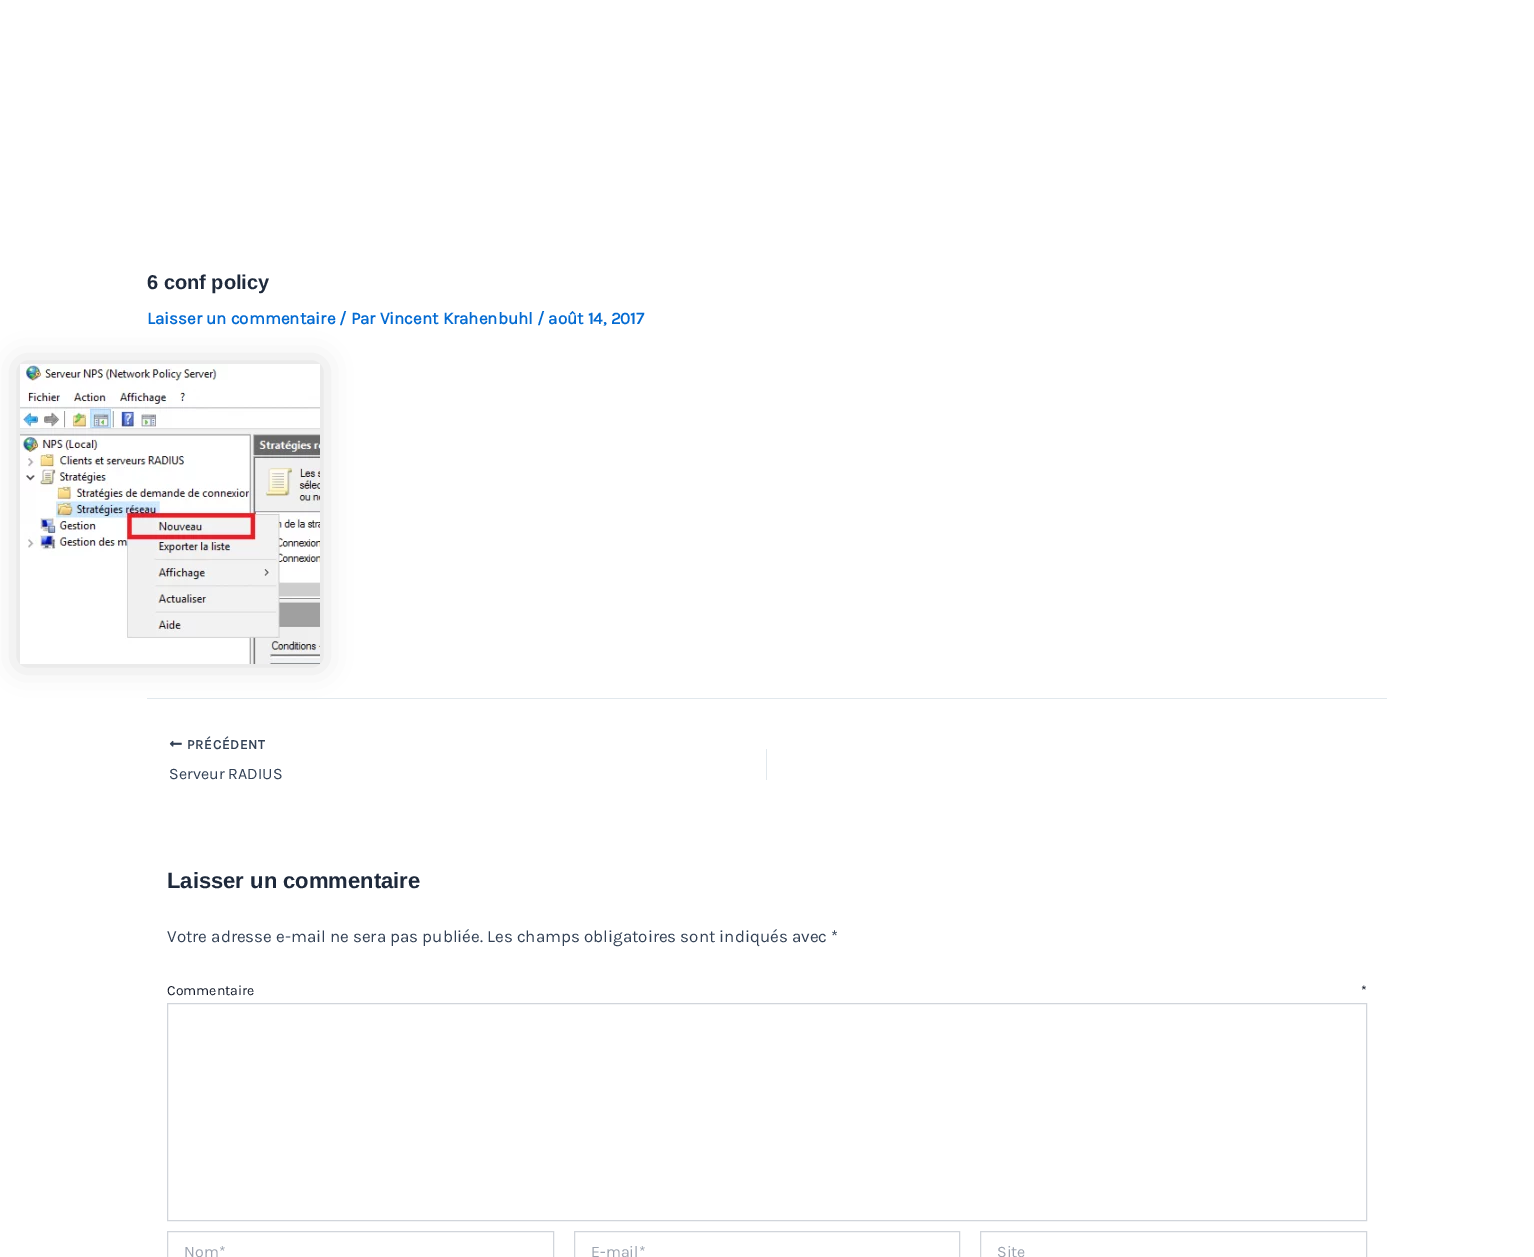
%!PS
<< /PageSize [1534 1257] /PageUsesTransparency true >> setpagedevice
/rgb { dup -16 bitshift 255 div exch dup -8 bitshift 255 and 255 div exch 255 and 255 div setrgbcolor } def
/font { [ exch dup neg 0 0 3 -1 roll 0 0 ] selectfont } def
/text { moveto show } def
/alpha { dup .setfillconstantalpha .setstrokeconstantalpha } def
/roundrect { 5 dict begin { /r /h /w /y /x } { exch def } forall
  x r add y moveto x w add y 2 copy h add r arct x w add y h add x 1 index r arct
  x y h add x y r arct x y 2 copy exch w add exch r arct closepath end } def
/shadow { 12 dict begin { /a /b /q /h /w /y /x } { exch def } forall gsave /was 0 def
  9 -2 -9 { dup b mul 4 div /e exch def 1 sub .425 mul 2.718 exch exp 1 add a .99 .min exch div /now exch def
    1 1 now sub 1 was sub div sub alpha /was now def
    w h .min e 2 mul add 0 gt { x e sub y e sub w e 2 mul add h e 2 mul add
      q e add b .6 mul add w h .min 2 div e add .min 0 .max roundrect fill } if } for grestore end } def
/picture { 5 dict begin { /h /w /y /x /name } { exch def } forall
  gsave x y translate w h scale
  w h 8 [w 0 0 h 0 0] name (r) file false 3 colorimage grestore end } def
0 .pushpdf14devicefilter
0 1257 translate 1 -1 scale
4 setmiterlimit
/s1 { /LiberationSans-Bold 20 font 16#1E293B rgb } def
/s2 { /Karla-Bold 17 font 16#046BD2 rgb } def
/s3 { /Karla-Regular 16 font 16#334155 rgb } def
/s4 { /LiberationSans-Bold 22 font 16#1E293B rgb } def
/s5 { /Karla-Regular 17 font 16#334155 rgb } def
/s6 { /Karla-Regular 14 font 16#111827 rgb } def
/s7 { /Karla-Regular 16 font 16#9CA3AF rgb } def
16#FFFFFF rgb
0 0 1534 1257 rectfill
s1
(6 conf policy) 147 289 text
s2
(Laisser un commentaire / Par Vincent Krahenbuhl / août 14, 2017) 147 324 text
16#000000 rgb
20 364 300 300 0 15 0.15 shadow
(pic1.raw) 20 364 300 300 picture
16#E1E8ED rgb
147 698 1240 1 rectfill
(pic2.raw) 169 740 13 7 picture
/Karla-Bold 13.5 font
16#334155 rgb
187 749 moveto 0.75 0 (PRÉCÉDENT) ashow
s3
(Serveur RADIUS) 169 779 text
16#E1E8ED rgb
766 749 1 31 rectfill
s4
(Laisser un commentaire) 167 888 text
s5
(Votre adresse e-mail ne sera pas publiée. Les champs obligatoires sont indiqués avec *) 167 942 text
s6
(Commentaire) 167 995 text
(*) 1361 995 text
16#D1D5DB rgb
167.5 1003.5 1199 217 rectstroke
167.5 1231.5 386 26 rectstroke
s7
(Nom*) 184 1257 text
16#D1D5DB rgb
574.5 1231.5 385 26 rectstroke
s7
(E-mail*) 591 1257 text
16#D1D5DB rgb
980.5 1231.5 386 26 rectstroke
s7
(Site) 997 1257 text
.poppdf14devicefilter showpage
